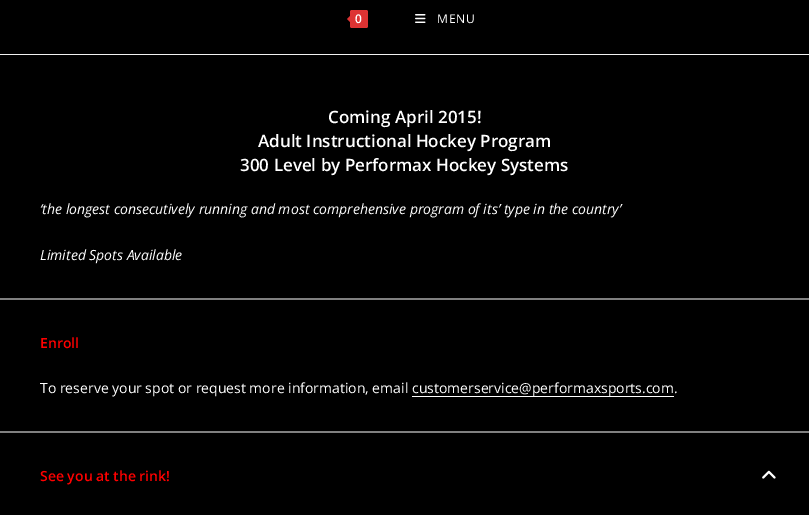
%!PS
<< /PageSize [809 515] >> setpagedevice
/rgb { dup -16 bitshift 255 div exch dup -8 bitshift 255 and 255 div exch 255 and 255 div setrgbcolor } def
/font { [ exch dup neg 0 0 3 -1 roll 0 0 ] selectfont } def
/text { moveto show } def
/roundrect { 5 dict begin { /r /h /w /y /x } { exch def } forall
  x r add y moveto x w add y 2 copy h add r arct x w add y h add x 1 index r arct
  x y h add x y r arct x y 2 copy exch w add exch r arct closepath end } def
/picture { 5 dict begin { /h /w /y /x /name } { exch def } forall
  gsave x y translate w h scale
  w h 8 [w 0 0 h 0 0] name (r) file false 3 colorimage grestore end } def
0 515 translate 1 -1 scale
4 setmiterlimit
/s1 { /OpenSans-SemiBold 17 font 16#FFFFFF rgb } def
/s2 { /OpenSans-Italic 14 font 16#FFFFFF rgb } def
/s3 { /OpenSans-SemiBold 14 font 16#FF0000 rgb } def
/s4 { /OpenSans-Regular 14 font 16#FFFFFF rgb } def
16#000000 rgb
0 0 809 515 rectfill
16#F1F1F1 rgb
0 54 809 1 rectfill
16#DD3333 rgb
350 10 18 18 2 roundrect fill
352 14 moveto 352 24 lineto 347 19 lineto closepath fill
/OpenSans-SemiBold 12 font
16#FFFFFF rgb
355 23 moveto 1 0 (0) ashow
(pic1.raw) 415 14 11 9 picture
/OpenSans-Regular 12 font
437 23 moveto 1 0 (MENU) ashow
s1
(Coming April 2015!) 328 123 text
(Adult Instructional Hockey Program) 258 147 text
(300 Level by Performax Hockey Systems) 240 171 text
s2
(‘the longest consecutively running and most comprehensive program of its’ type in the country’) 40 214 text
(Limited Spots Available) 40 260 text
16#808080 rgb
0 298 809 2 rectfill
s3
(Enroll) 40 348 text
s4
(To reserve your spot or request more information, email) 40 393 text
412 396 262 1 rectfill
(customerservice@performaxsports.com.) 412 393 text
16#808080 rgb
0 431 809 2 rectfill
s3
(See you at the rink!) 40 481 text
(pic2.raw) 762 470 14 9 picture
showpage
